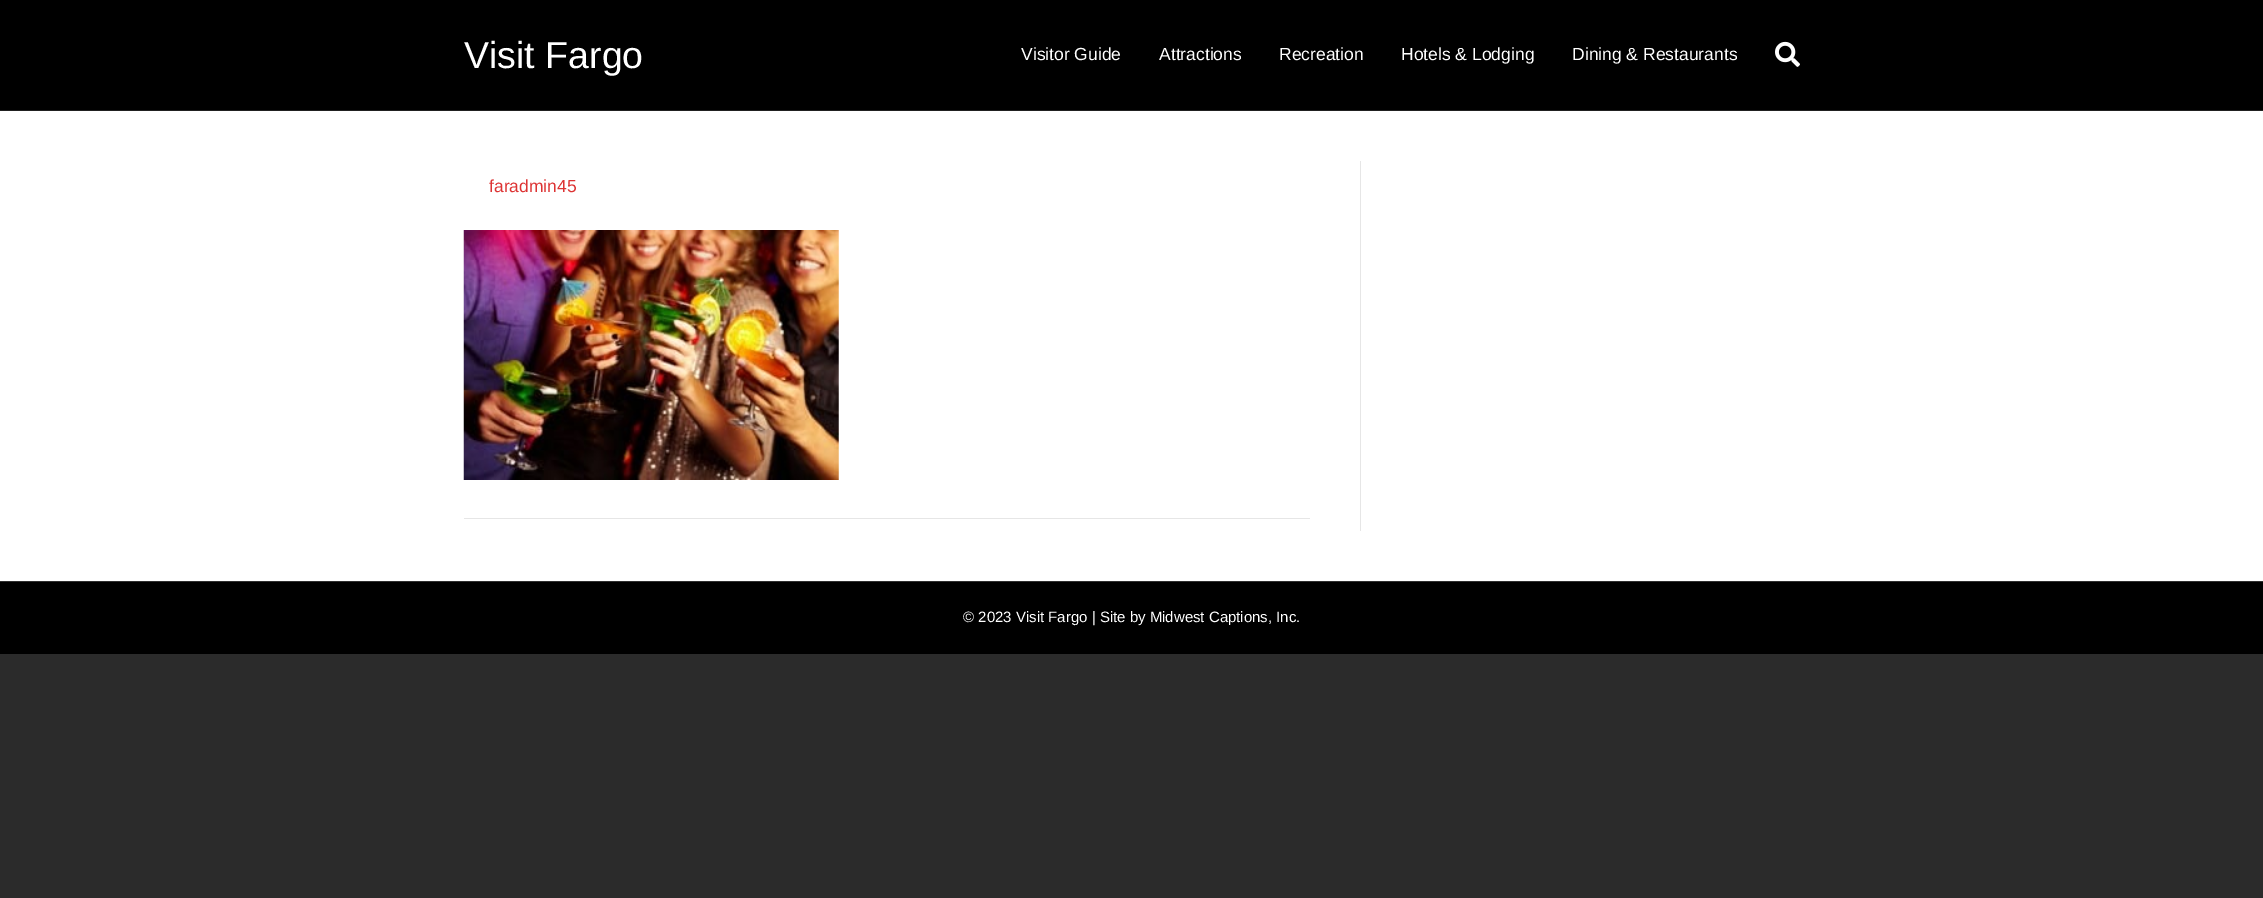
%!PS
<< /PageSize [2263 898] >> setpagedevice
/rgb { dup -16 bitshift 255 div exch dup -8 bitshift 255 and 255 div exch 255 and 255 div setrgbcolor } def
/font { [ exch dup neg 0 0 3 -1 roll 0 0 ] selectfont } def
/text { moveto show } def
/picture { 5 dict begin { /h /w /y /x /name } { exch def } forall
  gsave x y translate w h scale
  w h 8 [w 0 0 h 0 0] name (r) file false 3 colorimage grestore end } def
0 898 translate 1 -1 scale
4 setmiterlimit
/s1 { /LiberationSans-Regular 37.5 font 16#FFFFFF rgb } def
/s2 { /LiberationSans-Regular 17.5 font 16#FFFFFF rgb } def
/s3 { /LiberationSans-Regular 17.5 font 16#DD3333 rgb } def
/s4 { /LiberationSans-Regular 15 font 16#FFFFFF rgb } def
16#2B2B2B rgb
0 0 2263 898 rectfill
16#000000 rgb
0 0 2263 110 rectfill
16#212121 rgb
0 110 2263 1 rectfill
s1
(Visit Fargo) 464 68 text
s2
(Visitor Guide) 1021 60 text
(Attractions) 1159 60 text
(Recreation) 1279 60 text
(Hotels & Lodging) 1401 60 text
(Dining & Restaurants) 1572 60 text
(pic1.raw) 1775 41 25 26 picture
0 111 2263 470 rectfill
16#E6E6E6 rgb
1360 161 1 370 rectfill
s3
(faradmin45) 489 192 text
(pic2.raw) 463 230 376 250 picture
16#E6E6E6 rgb
464 518 846 1 rectfill
16#000000 rgb
0 582 2263 72 rectfill
16#303030 rgb
0 581 2263 1 rectfill
s4
(© 2023 Visit Fargo | Site by Midwest Captions, Inc.) 963 622 text
showpage
